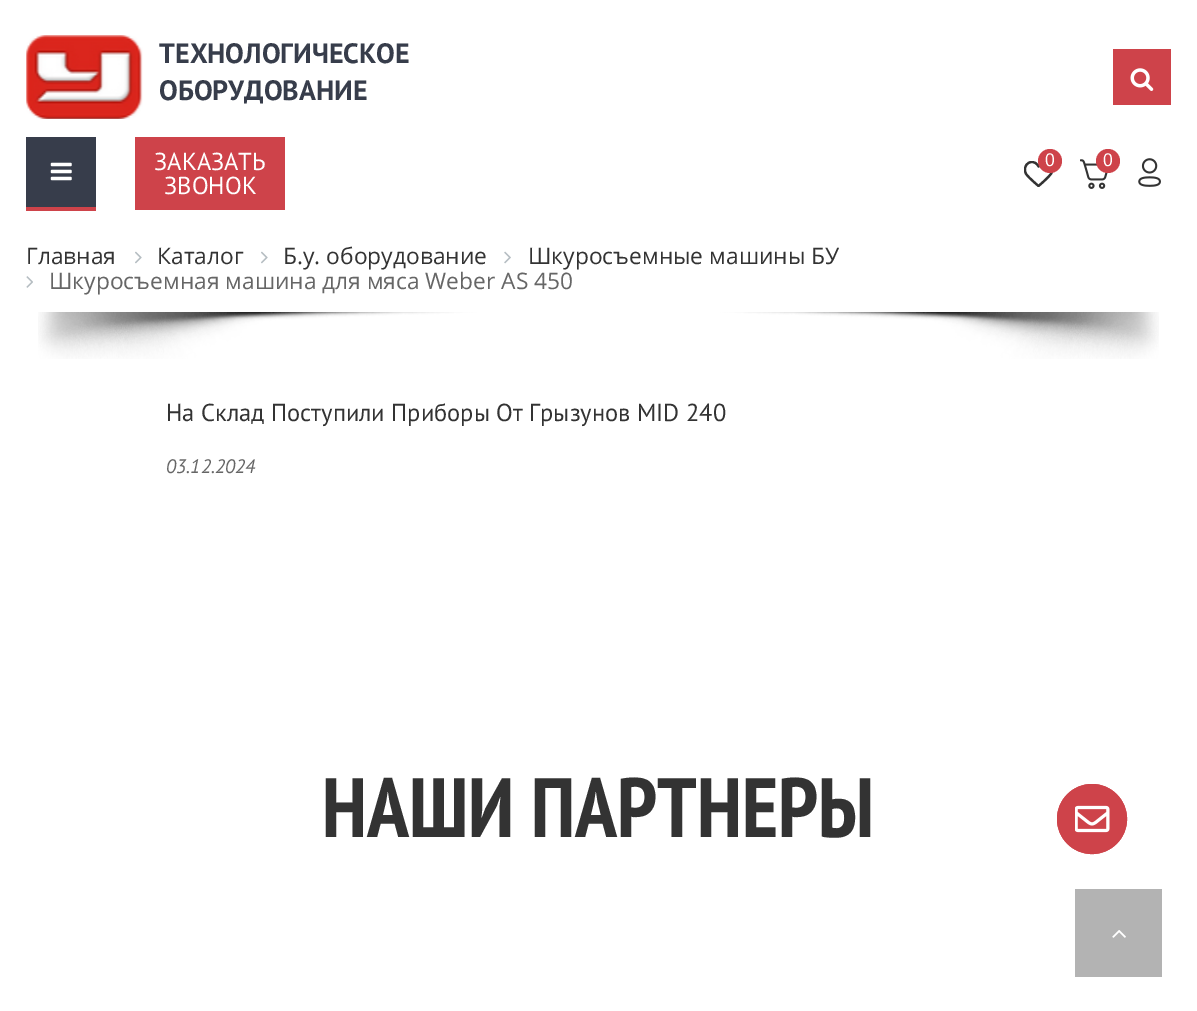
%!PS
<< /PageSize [1197 1011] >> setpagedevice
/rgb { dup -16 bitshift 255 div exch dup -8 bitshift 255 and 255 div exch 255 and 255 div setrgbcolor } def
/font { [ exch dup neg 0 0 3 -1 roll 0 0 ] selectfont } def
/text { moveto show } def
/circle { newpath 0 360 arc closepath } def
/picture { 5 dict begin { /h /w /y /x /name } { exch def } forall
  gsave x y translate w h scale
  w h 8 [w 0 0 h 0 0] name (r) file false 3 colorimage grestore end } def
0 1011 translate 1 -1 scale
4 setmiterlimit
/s1 { /PTSans-Bold 28 font 16#373D4B rgb } def
/s2 { /PTSans-Regular 24.5 font 16#FFFFFF rgb } def
/s3 { /PTSans-Regular 18 font 16#FFFFFF rgb } def
/s4 { /OpenSans-Regular 22.75 font 16#333333 rgb } def
/s5 { /OpenSans-Regular 22.75 font 16#666666 rgb } def
/s6 { /PTSans-Regular 24.5 font 16#333333 rgb } def
/s7 { /PTSans-Italic 19.5 font 16#666666 rgb } def
/s8 { /PTSansNarrow-Bold 84 font 16#333333 rgb } def
16#FFFFFF rgb
0 0 1197 1011 rectfill
(pic1.raw) 26 35 117 84 picture
s1
(ТЕХНОЛОГИЧЕСКОЕ) 159 63 text
(ОБОРУДОВАНИЕ) 159 100 text
16#CE434A rgb
1113 49 58 56 rectfill
(pic2.raw) 1130 68 24 23 picture
135 137 150 73 rectfill
s2
(ЗАКАЗАТЬ) 154 170 text
(ЗВОНОК) 164 194 text
gsave
1024 161 30 26 rectclip
16#333333 rgb
2.2 setlinewidth
1 setlinejoin
1029.5 162.5 moveto 1034.5 160.5 1037.5 164.5 1038.5 166.5 curveto 1043 158 1056.5 163 1051.5 173 curveto 1049 177 1042 183 1038.5 186 curveto 1038.5 186 1029.5 178.5 1026.5 174.5 curveto 1023.5 170.5 1024.5 164.5 1029.5 162.5 curveto closepath stroke
grestore
16#CE434A rgb
1050 161 12 circle fill
s3
(0) 1045 166 text
(pic3.raw) 1080 159 28 30 picture
16#CE434A rgb
1108 161 12 circle fill
s3
(0) 1103 166 text
(pic4.raw) 1138 158 23 29 picture
16#373D4B rgb
26 137 70 70 rectfill
16#CE434A rgb
26 207 70 4 rectfill
(pic5.raw) 50 162 22 19 picture
s4
(Главная) 26 264 text
(pic6.raw) 135 251 7 13 picture
(Каталог) 157 264 text
(pic6.raw) 261 251 7 13 picture
(Б.у. оборудование) 283 264 text
(pic7.raw) 504 251 7 13 picture
(Шкуросъемные машины БУ) 528 264 text
(pic8.raw) 26 276 7 12 picture
s5
(Шкуросъемная машина для мяса Weber AS 450) 49 289 text
(pic9.raw) 38 312 1121 47 picture
s6
(На Склад Поступили Приборы От Грызунов MID 240) 166 421 text
s7
(03.12.2024) 166 473 text
s8
(НАШИ ПАРТНЕРЫ) 322 837 text
16#B3B3B3 rgb
1075 889 87 88 rectfill
(pic10.raw) 1112 930 14 8 picture
16#CE434A rgb
4 setlinewidth
1092 819 33 circle stroke
1092 819 35 circle fill
(pic11.raw) 1075 805 35 28 picture
showpage
